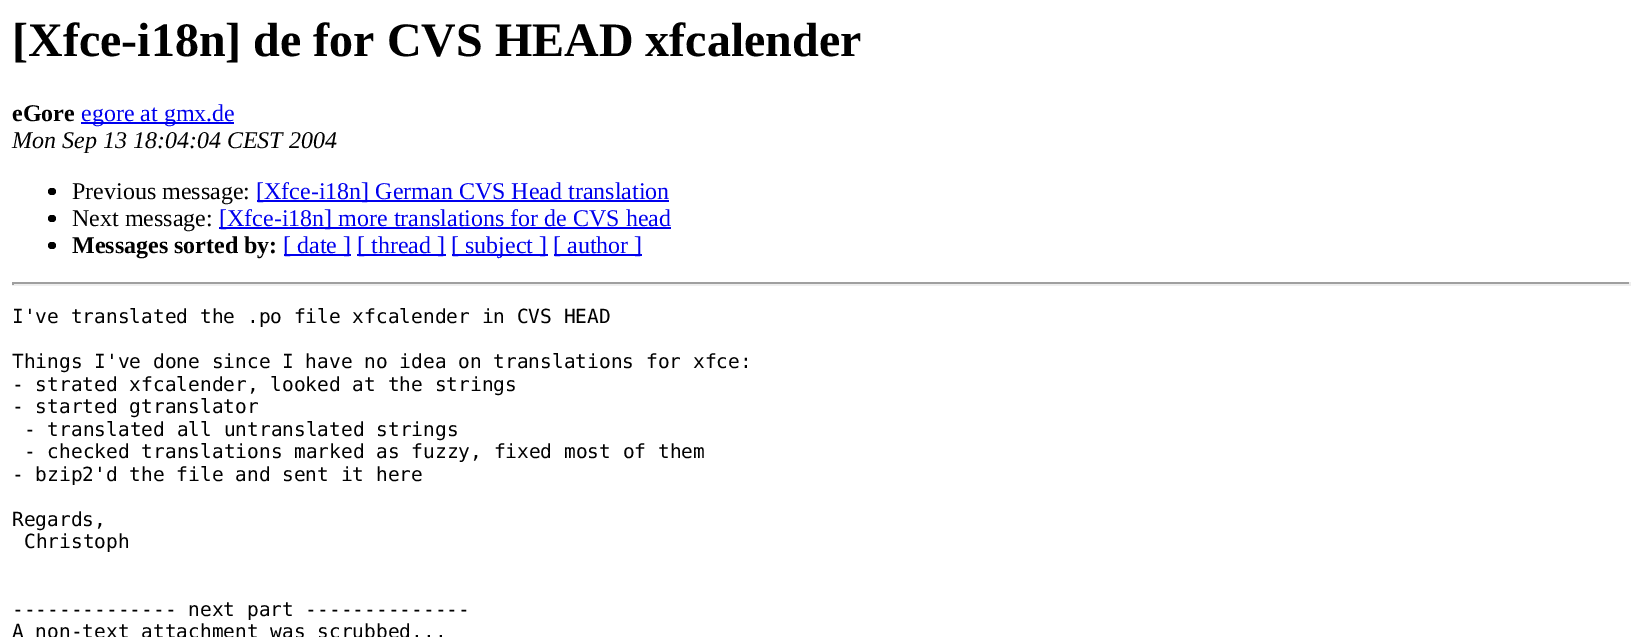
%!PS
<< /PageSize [1642 637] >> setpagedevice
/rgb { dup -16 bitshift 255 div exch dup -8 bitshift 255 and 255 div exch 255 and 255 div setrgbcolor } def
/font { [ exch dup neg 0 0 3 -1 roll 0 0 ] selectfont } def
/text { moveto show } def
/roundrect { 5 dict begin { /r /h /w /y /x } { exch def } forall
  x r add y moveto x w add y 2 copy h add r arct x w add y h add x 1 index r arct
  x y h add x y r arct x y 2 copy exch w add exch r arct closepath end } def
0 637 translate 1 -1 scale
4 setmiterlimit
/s1 { /LiberationSerif-Bold 48 font 16#000000 rgb } def
/s2 { /LiberationSerif-Bold 24 font 16#000000 rgb } def
/s3 { /LiberationSerif-Regular 24 font 16#0000EE rgb } def
/s4 { /LiberationSerif-Italic 24 font 16#000000 rgb } def
/s5 { /LiberationSerif-Regular 24 font 16#000000 rgb } def
/s6 { /DejaVuSansMono-Regular 19.5 font 16#000000 rgb } def
16#FFFFFF rgb
0 0 1642 637 rectfill
s1
([Xfce-i18n] de for CVS HEAD xfcalender) 12 56 text
s2
(eGore) 12 121 text
16#0000EE rgb
81 122 153 2 rectfill
s3
(egore at gmx.de) 81 121 text
s4
(Mon Sep 13 18:04:04 CEST 2004) 12 148 text
48 188 8 7 3.5 roundrect fill
s5
(Previous message:) 72 199 text
16#0000EE rgb
257 200 412 2 rectfill
([Xfce-i18n] German CVS Head translation) 256 199 text
16#000000 rgb
48 215 8 7 3.5 roundrect fill
(Next message:) 72 226 text
16#0000EE rgb
219 227 452 2 rectfill
([Xfce-i18n] more translations for de CVS head) 219 226 text
16#000000 rgb
48 242 8 7 3.5 roundrect fill
s2
(Messages sorted by:) 72 253 text
16#0000EE rgb
284 254 67 2 rectfill
s3
([ date ]) 283 253 text
357 254 89 2 rectfill
([ thread ]) 357 253 text
452 254 96 2 rectfill
([ subject ]) 451 253 text
554 254 88 2 rectfill
([ author ]) 553 253 text
16#9F9F9F rgb
12 282 1619 2 rectfill
16#EEEEEE rgb
1629 282 2 3 rectfill
12 284 1619 2 rectfill
16#9F9F9F rgb
12 282 2 3 rectfill
s6
(I've translated the .po file xfcalender in CVS HEAD) 12 323 text
(Things I've done since I have no idea on translations for xfce:) 12 368 text
(- strated xfcalender, looked at the strings) 12 391 text
(- started gtranslator) 12 413 text
(- translated all untranslated strings) 24 436 text
(- checked translations marked as fuzzy, fixed most of them) 24 458 text
(- bzip2'd the file and sent it here) 12 481 text
(Regards,) 12 526 text
(Christoph) 24 548 text
(-------------- next part --------------) 12 616 text
(A non-text attachment was scrubbed...) 12 638 text
showpage
